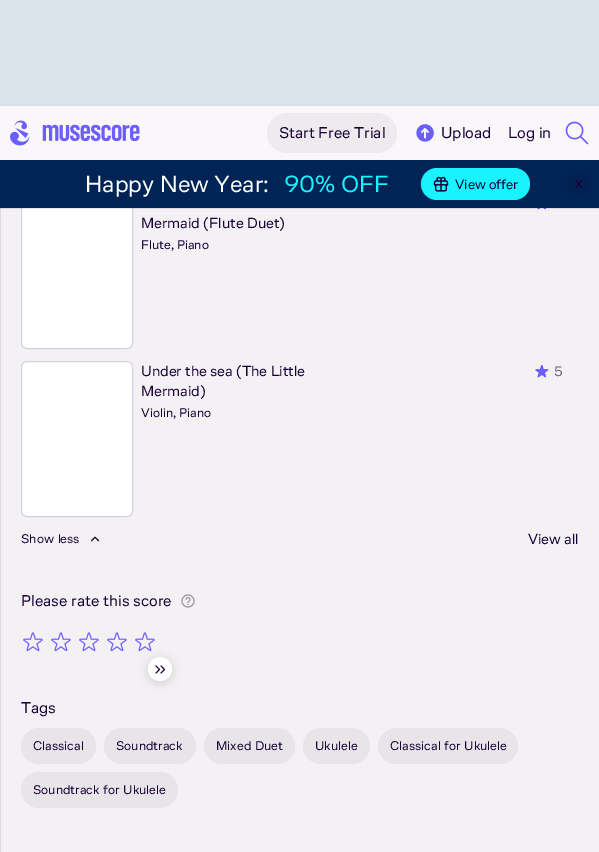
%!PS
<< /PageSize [599 852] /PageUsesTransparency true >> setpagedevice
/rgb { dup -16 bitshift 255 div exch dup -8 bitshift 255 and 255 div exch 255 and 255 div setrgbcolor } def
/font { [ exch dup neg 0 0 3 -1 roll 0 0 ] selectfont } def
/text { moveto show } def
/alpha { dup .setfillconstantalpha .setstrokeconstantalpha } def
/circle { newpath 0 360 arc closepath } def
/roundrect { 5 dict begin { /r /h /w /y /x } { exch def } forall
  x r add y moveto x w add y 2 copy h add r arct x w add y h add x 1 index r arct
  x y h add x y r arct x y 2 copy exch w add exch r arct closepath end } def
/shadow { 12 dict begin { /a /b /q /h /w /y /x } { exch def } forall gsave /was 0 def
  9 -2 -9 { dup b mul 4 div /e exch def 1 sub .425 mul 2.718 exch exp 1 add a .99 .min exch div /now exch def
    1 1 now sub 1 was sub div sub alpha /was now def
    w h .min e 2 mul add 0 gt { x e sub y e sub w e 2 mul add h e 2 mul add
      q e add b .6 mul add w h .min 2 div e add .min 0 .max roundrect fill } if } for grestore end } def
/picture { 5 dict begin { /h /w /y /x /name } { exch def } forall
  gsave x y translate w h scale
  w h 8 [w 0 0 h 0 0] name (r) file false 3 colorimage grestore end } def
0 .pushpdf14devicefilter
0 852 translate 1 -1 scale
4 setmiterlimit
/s1 { /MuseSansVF-Regular 16 font 16#180036 rgb } def
/s2 { /MuseSansVF-Regular 24 font 16#FFFFFF rgb } def
/s3 { /MuseSansVF-Regular 24 font 16#19F3FF rgb } def
/s4 { /MuseSansVF-Regular 14 font 16#180036 rgb } def
/s5 { /MuseSansVF-Regular 15 font 16#180036 rgb } def
/s6 { /MuseSansVF-Regular 13 font 16#180036 rgb } def
/s7 { /MuseSansVF-Regular 14 font 16#6E5F79 rgb } def
16#F3F1F4 rgb
0 0 599 852 rectfill
16#DDD9E1 rgb
0 208 1 644 rectfill
(pic6.raw) 537 208 10 2 picture
16#FFFFFF rgb
21.5 193.5 111 155 5.5 roundrect gsave fill grestore
16#D2D6DC rgb
stroke
0.1 alpha
16#180036 rgb
0 208 599 1 rectfill
1 alpha
16#DAE3E9 rgb
0 0 599 106 rectfill
16#F9F7FA rgb
0 106 599 54 rectfill
(pic1.raw) 10 120 130 26 picture
16#EDEBEE rgb
267 113 130 40 20 roundrect fill
s1
(Start Free Trial) 279 138 text
(pic2.raw) 416 124 18 18 picture
(Upload) 441 138 text
(Log in) 508 138 text
(pic3.raw) 565 121 24 24 picture
16#002455 rgb
0 160 599 48 rectfill
s2
(Happy) 85 192 text
(New) 160 192 text
(Year:) 214 192 text
s3
(90%) 284 192 text
(OFF) 341 192 text
421 168 109 32 16 roundrect fill
(pic4.raw) 433 176 16 16 picture
s4
(View offer) 455 189 text
16#022052 rgb
579 184 12 circle fill
(pic5.raw) 575 180 8 8 picture
s5
(Mermaid \(Flute Duet\)) 141 228 text
s6
(Flute, Piano) 141 249 text
16#FFFFFF rgb
21.5 361.5 111 155 5.5 roundrect gsave fill grestore
16#D2D6DC rgb
stroke
s5
(Under the sea \(The Little) 141 376 text
(Mermaid\)) 141 396 text
s6
(Violin, Piano) 141 417 text
(pic7.raw) 535 365 14 13 picture
s7
(5) 554 376 text
/MuseSansVF-Regular 13 font
16#180036 rgb
21 543 moveto 1 0 32 (Show less) widthshow
(pic8.raw) 90 536 10 6 picture
s5
(View all) 528 544 text
s1
(Please) 21 606 text
(rate) 71 606 text
(this) 103 606 text
(score) 133 606 text
(pic9.raw) 181 594 14 14 picture
(pic10.raw) 23 632 20 20 picture
(pic10.raw) 51 632 20 20 picture
(pic10.raw) 79 632 20 20 picture
(pic10.raw) 107 632 20 20 picture
(pic10.raw) 135 632 20 20 picture
(Tags) 21 713 text
16#E7E5E8 rgb
21 728 75 36 18 roundrect fill
s6
(Classical) 33 750 text
16#E7E5E8 rgb
104 728 92 36 18 roundrect fill
s6
(Soundtrack) 116 750 text
16#E7E5E8 rgb
204 728 91 36 18 roundrect fill
16#180036 rgb
216 750 moveto 1 0 32 (Mixed Duet) widthshow
16#E7E5E8 rgb
303 728 67 36 18 roundrect fill
s6
(Ukulele) 315 750 text
16#E7E5E8 rgb
378 728 140 36 18 roundrect fill
16#180036 rgb
390 750 moveto 1 0 32 (Classical for Ukulele) widthshow
16#E7E5E8 rgb
21 772 157 36 18 roundrect fill
16#180036 rgb
33 794 moveto 1 0 32 (Soundtrack for Ukulele) widthshow
16#000000 rgb
148 659 24 24 12 5 0.14 shadow
16#FFFFFF rgb
160 669 12 circle fill
(pic11.raw) 155 665 11 9 picture
.poppdf14devicefilter showpage
